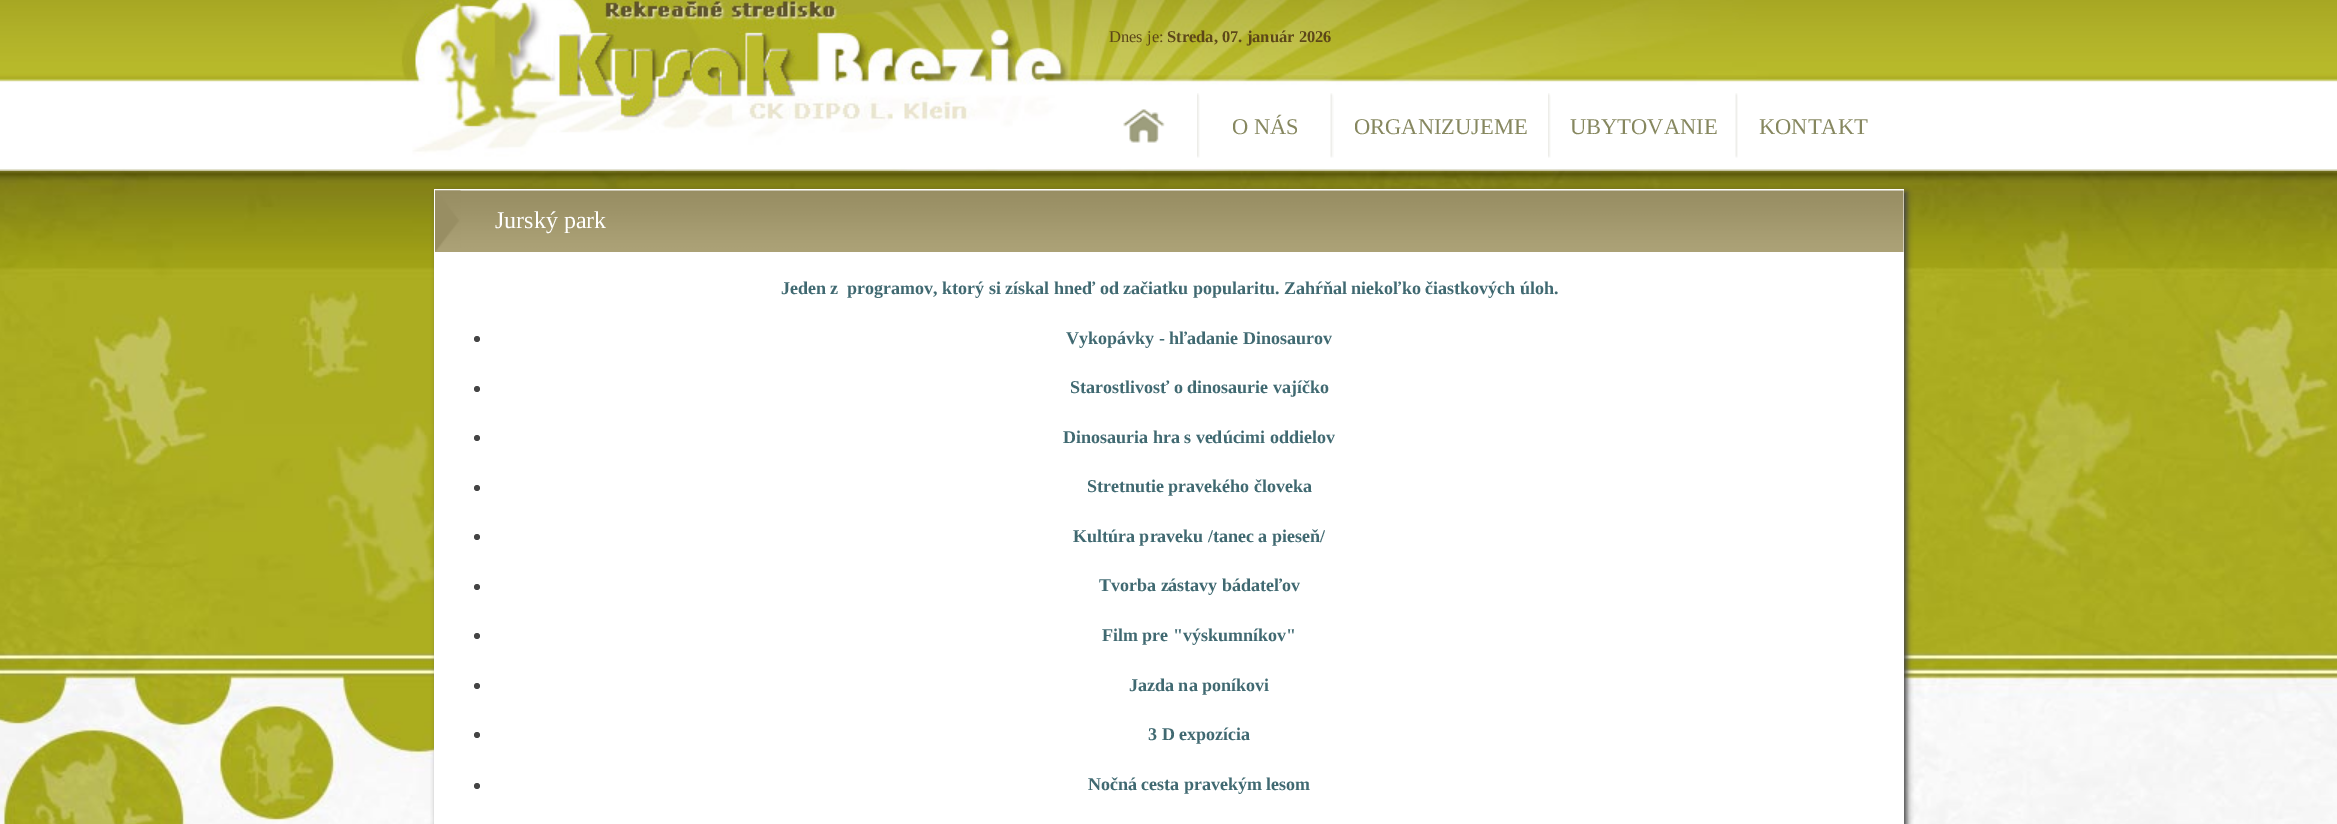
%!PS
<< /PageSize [2337 824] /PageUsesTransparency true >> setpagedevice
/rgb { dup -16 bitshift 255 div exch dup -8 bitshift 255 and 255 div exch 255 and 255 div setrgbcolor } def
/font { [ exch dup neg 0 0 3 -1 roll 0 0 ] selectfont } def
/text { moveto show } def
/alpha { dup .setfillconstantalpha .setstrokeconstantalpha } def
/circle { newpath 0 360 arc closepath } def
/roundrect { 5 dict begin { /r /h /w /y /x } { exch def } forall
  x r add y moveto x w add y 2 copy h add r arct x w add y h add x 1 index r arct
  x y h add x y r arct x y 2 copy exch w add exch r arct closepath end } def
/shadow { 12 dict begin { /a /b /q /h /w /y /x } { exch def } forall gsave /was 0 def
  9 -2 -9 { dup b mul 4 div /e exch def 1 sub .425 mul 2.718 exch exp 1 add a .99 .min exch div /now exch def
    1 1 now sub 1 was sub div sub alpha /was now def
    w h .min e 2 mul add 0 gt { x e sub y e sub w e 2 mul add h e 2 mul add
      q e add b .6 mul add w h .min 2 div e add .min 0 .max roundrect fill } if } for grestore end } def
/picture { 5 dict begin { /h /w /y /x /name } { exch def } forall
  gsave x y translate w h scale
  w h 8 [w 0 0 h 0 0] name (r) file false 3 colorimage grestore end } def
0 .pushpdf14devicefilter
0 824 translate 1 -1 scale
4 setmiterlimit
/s1 { /LiberationSerif-Regular 16.5 font 16#5C4718 rgb } def
/s2 { /LiberationSerif-Bold 16.5 font 16#5C4718 rgb } def
/s3 { /LiberationSerif-Regular 22.5 font 16#86875F rgb } def
/s4 { /LiberationSerif-Regular 24 font 16#FFFFFF rgb } def
/s5 { /LiberationSerif-Bold 18 font 16#406971 rgb } def
16#FFFFFF rgb
0 0 2337 824 rectfill
(pic1.raw) 0 171 2337 653 picture
(pic2.raw) 0 0 2337 171 picture
s1
(Dnes je:) 1109 42 text
s2
(Streda, 07. január 2026) 1167 42 text
(pic3.raw) 1123 109 42 34 picture
(pic4.raw) 1197 93 3 65 picture
s3
(O NÁS) 1232 134 text
(pic5.raw) 1330 93 4 65 picture
(ORGANIZUJEME) 1354 134 text
(pic6.raw) 1548 93 3 65 picture
(UBYTOVANIE) 1570 134 text
(pic7.raw) 1735 93 3 65 picture
(KONTAKT) 1759 134 text
16#444444 rgb
437 192 1470 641 0 3 1 shadow
16#FFFFFF rgb
434 189 1470 635 rectfill
(pic8.raw) 435 190 1469 62 picture
(pic9.raw) 435 190 26 62 picture
s4
(Jurský park) 495 228 text
s5
(Jeden z  programov, ktorý si získal hneď od začiatku popularitu. Zahŕňal niekoľko čiastkových úloh.) 781 294 text
16#454545 rgb
477 339 3 circle fill
s5
(Vykopávky - hľadanie Dinosaurov) 1066 344 text
16#454545 rgb
477 389 3 circle fill
s5
(Starostlivosť o dinosaurie vajíčko) 1070 393 text
16#454545 rgb
477 438 3 circle fill
s5
(Dinosauria hra s vedúcimi oddielov) 1063 443 text
16#454545 rgb
477 488 3 circle fill
s5
(Stretnutie pravekého človeka) 1087 492 text
16#454545 rgb
477 537 3 circle fill
s5
(Kultúra praveku /tanec a pieseň/) 1073 542 text
16#454545 rgb
477 587 3 circle fill
s5
(Tvorba zástavy bádateľov) 1099 591 text
16#454545 rgb
477 636 3 circle fill
s5
(Film pre "výskumníkov") 1102 641 text
16#454545 rgb
477 686 3 circle fill
s5
(Jazda na poníkovi) 1129 691 text
16#454545 rgb
477 735 3 circle fill
s5
(3 D expozícia) 1148 740 text
16#454545 rgb
477 786 3 circle fill
s5
(Nočná cesta pravekým lesom) 1088 790 text
.poppdf14devicefilter showpage
